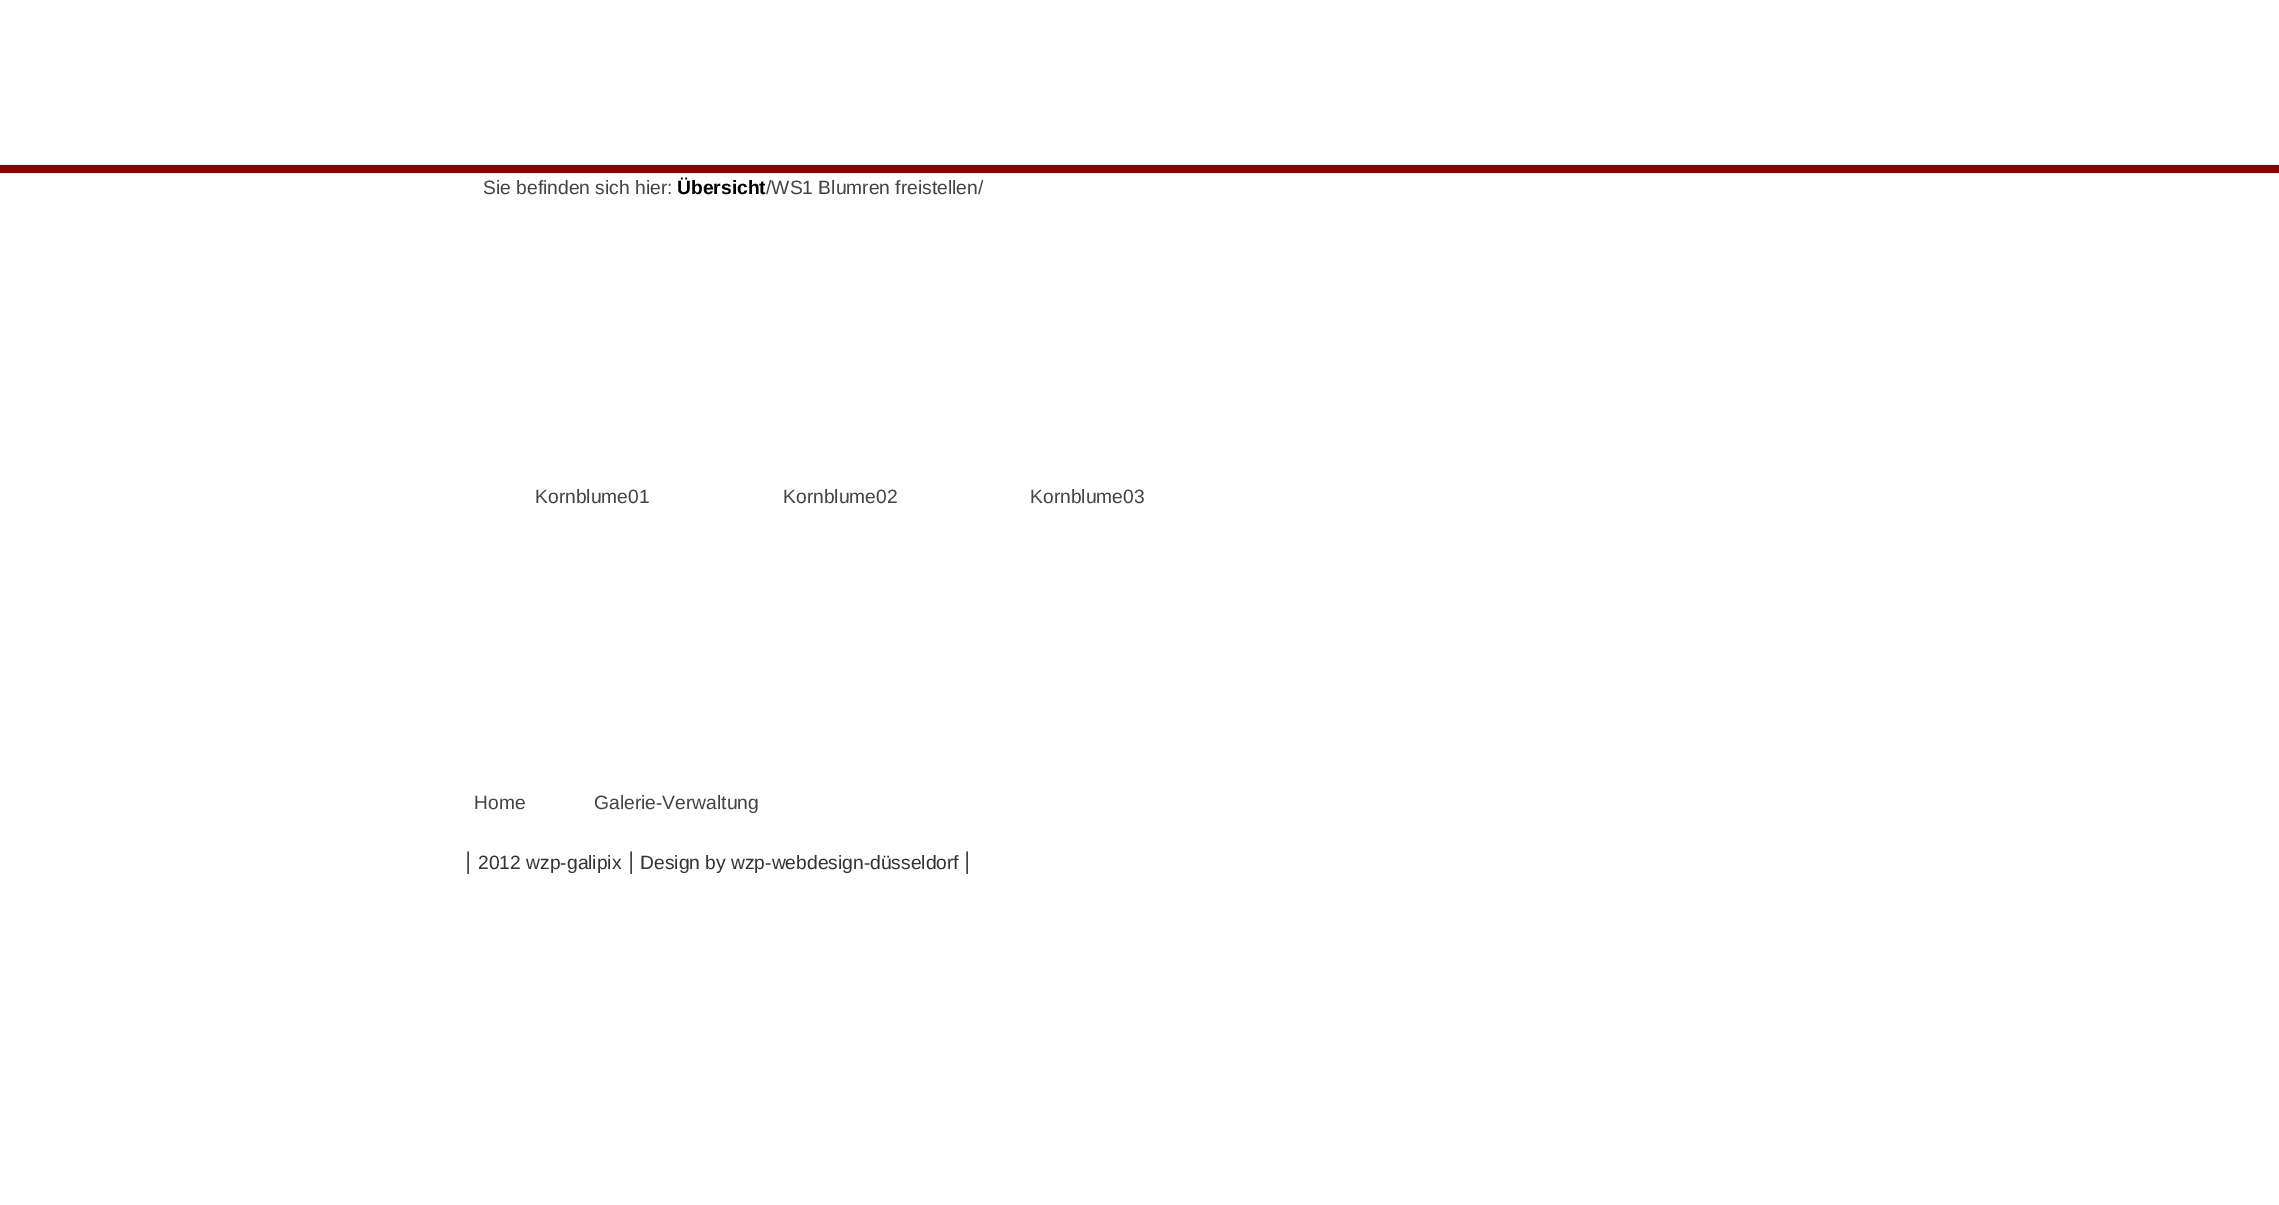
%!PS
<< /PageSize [2279 1205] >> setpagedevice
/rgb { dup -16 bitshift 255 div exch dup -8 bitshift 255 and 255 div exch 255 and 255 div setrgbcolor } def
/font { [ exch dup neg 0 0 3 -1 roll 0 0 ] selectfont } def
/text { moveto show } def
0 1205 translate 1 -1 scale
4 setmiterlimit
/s1 { /LiberationSans-Regular 19.25 font 16#444444 rgb } def
/s2 { /LiberationSans-Bold 19.25 font 16#000000 rgb } def
/s3 { /LiberationSans-Regular 24 font 16#444444 rgb } def
/s4 { /LiberationSans-Regular 19.25 font 16#333333 rgb } def
16#FFFFFF rgb
0 0 2279 1205 rectfill
16#8B0000 rgb
0 165 2279 8 rectfill
s1
(Sie befinden sich hier:) 483 194 text
s2
(Übersicht) 677 194 text
s1
(/WS1 Blumren freistellen/) 766 194 text
(Kornblume01) 535 503 text
(Kornblume02) 783 503 text
(Kornblume03) 1030 503 text
(Home) 474 809 text
(Galerie-Verwaltung) 594 809 text
s3
(|) 465 869 text
s4
(2012 wzp-galipix) 478 869 text
s3
(|) 628 869 text
s4
(Design by wzp-webdesign-düsseldorf) 640 869 text
s3
(|) 964 869 text
showpage
